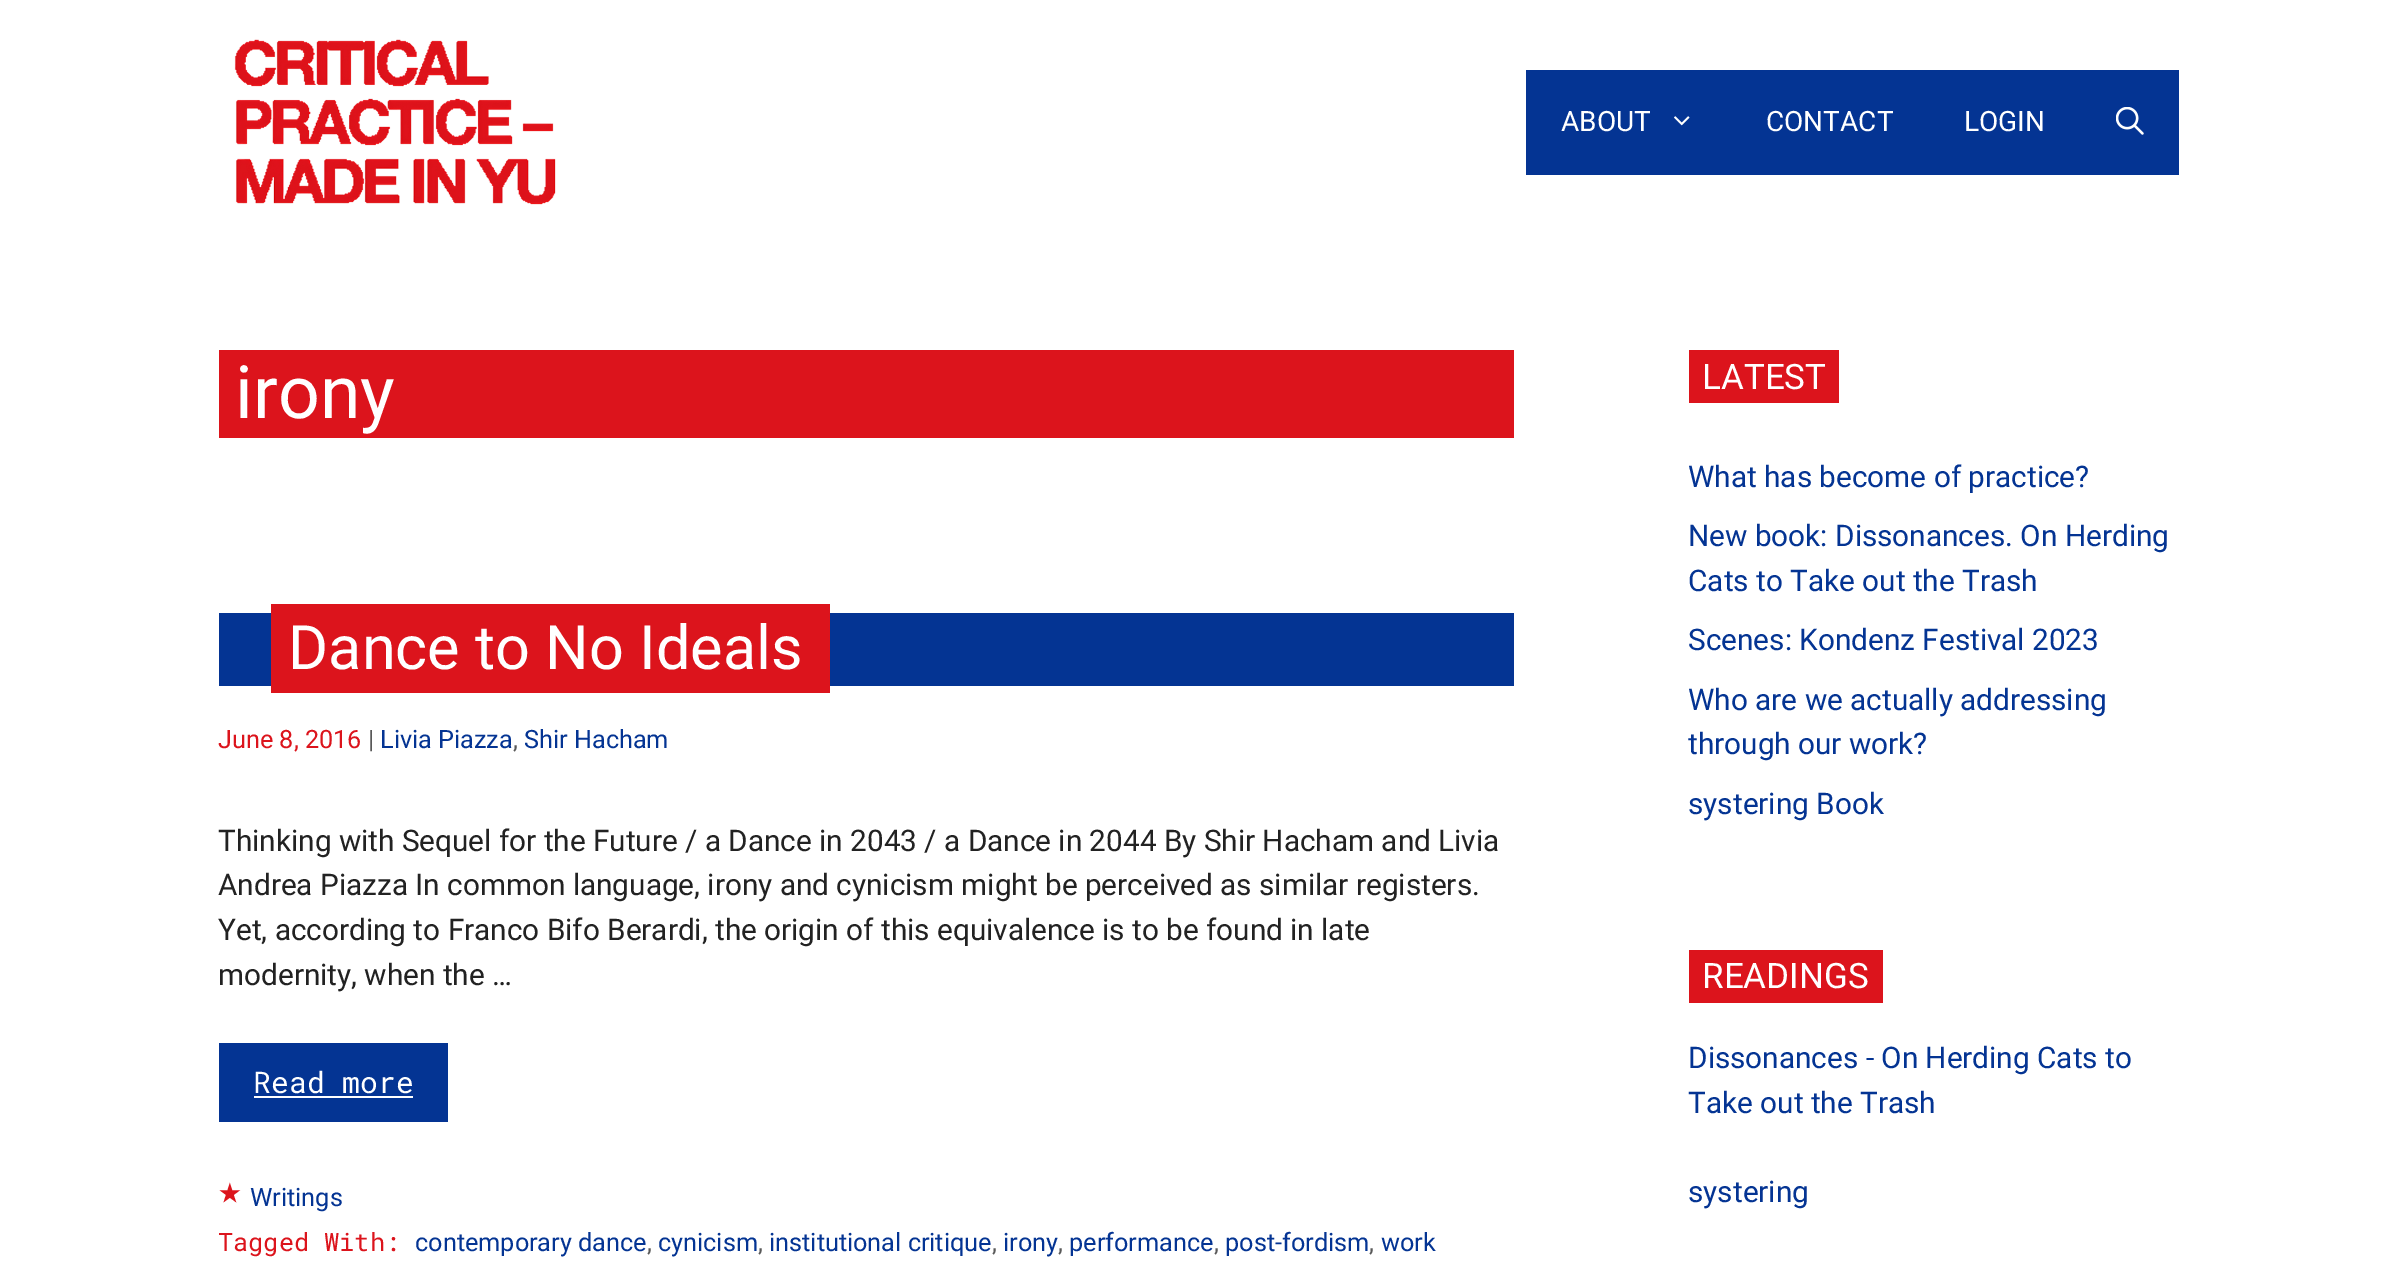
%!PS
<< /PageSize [2395 1269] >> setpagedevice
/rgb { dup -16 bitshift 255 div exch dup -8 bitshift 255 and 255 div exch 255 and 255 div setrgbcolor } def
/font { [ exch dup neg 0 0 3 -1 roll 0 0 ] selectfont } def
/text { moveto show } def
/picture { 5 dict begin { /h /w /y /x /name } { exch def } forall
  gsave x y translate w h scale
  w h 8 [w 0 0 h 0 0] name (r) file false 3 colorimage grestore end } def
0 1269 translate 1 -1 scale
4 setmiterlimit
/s1 { /Roboto-Regular 28 font 16#FFFFFF rgb } def
/s2 { /Roboto-Regular 73.5 font 16#FFFFFF rgb } def
/s3 { /Roboto-Regular 61.25 font 16#FFFFFF rgb } def
/s4 { /Roboto-Regular 25.25 font 16#DC141C rgb } def
/s5 { /Roboto-Regular 25.25 font 16#595959 rgb } def
/s6 { /Roboto-Regular 25.25 font 16#043493 rgb } def
/s7 { /Roboto-Regular 29.75 font 16#222222 rgb } def
/s8 { /RobotoMono-Regular 29.75 font 16#FFFFFF rgb } def
/s9 { /FreeSans-Regular 44 font 16#DC141C rgb } def
/s10 { /RobotoMono-Regular 25.25 font 16#DC141C rgb } def
/s11 { /Roboto-Regular 35 font 16#FFFFFF rgb } def
/s12 { /Roboto-Regular 29.75 font 16#043493 rgb } def
16#FFFFFF rgb
0 0 2395 1269 rectfill
(pic1.raw) 234 39 322 166 picture
16#043493 rgb
1526 70 653 105 rectfill
s1
(ABOUT) 1561 131 text
(pic2.raw) 1674 116 16 10 picture
(CONTACT) 1766 131 text
(LOGIN) 1964 131 text
(pic3.raw) 2116 107 28 28 picture
16#DC141C rgb
219 350 1295 88 rectfill
s2
(irony) 235 418 text
16#043493 rgb
219 613 1295 73 rectfill
16#DC141C rgb
271 604 559 89 rectfill
s3
(Dance to No Ideals) 288 669 text
s4
(June 8, 2016) 218 748 text
s5
(|) 368 748 text
s6
(Livia Piazza) 380 748 text
s5
(,) 513 748 text
s6
(Shir Hacham) 524 748 text
s7
(Thinking with Sequel for the Future / a Dance in 2043 / a Dance in 2044 By Shir Hacham and Livia) 218 851 text
(Andrea Piazza In common language, irony and cynicism might be perceived as similar registers.) 218 895 text
(Yet, according to Franco Bifo Berardi, the origin of this equivalence is to be found in late) 218 940 text
(modernity, when the …) 218 985 text
16#043493 rgb
219 1043 229 79 rectfill
s8
(Read more) 253 1093 text
254 1096 159 2 rectfill
s9
(⭑) 218 1206 text
s6
(Writings) 250 1206 text
s10
(Tagged With:) 218 1251 text
s6
(contemporary dance) 415 1251 text
s5
(,) 647 1251 text
s6
(cynicism) 658 1251 text
s5
(,) 758 1251 text
s6
(institutional critique) 769 1251 text
s5
(,) 992 1251 text
s6
(irony) 1003 1251 text
s5
(,) 1058 1251 text
s6
(performance) 1069 1251 text
s5
(,) 1214 1251 text
s6
(post-fordism) 1225 1251 text
s5
(,) 1369 1251 text
s6
(work) 1381 1251 text
16#DC141C rgb
1689 350 150 53 rectfill
s11
(LATEST) 1702 389 text
s12
(What has become of practice?) 1688 487 text
(New book: Dissonances. On Herding) 1688 546 text
(Cats to Take out the Trash) 1688 591 text
(Scenes: Kondenz Festival 2023) 1688 650 text
(Who are we actually addressing) 1688 710 text
(through our work?) 1688 754 text
(systering Book) 1688 814 text
16#DC141C rgb
1689 950 194 53 rectfill
s11
(READINGS) 1702 988 text
s12
(Dissonances - On Herding Cats to) 1688 1068 text
(Take out the Trash) 1688 1113 text
(systering) 1688 1202 text
showpage
